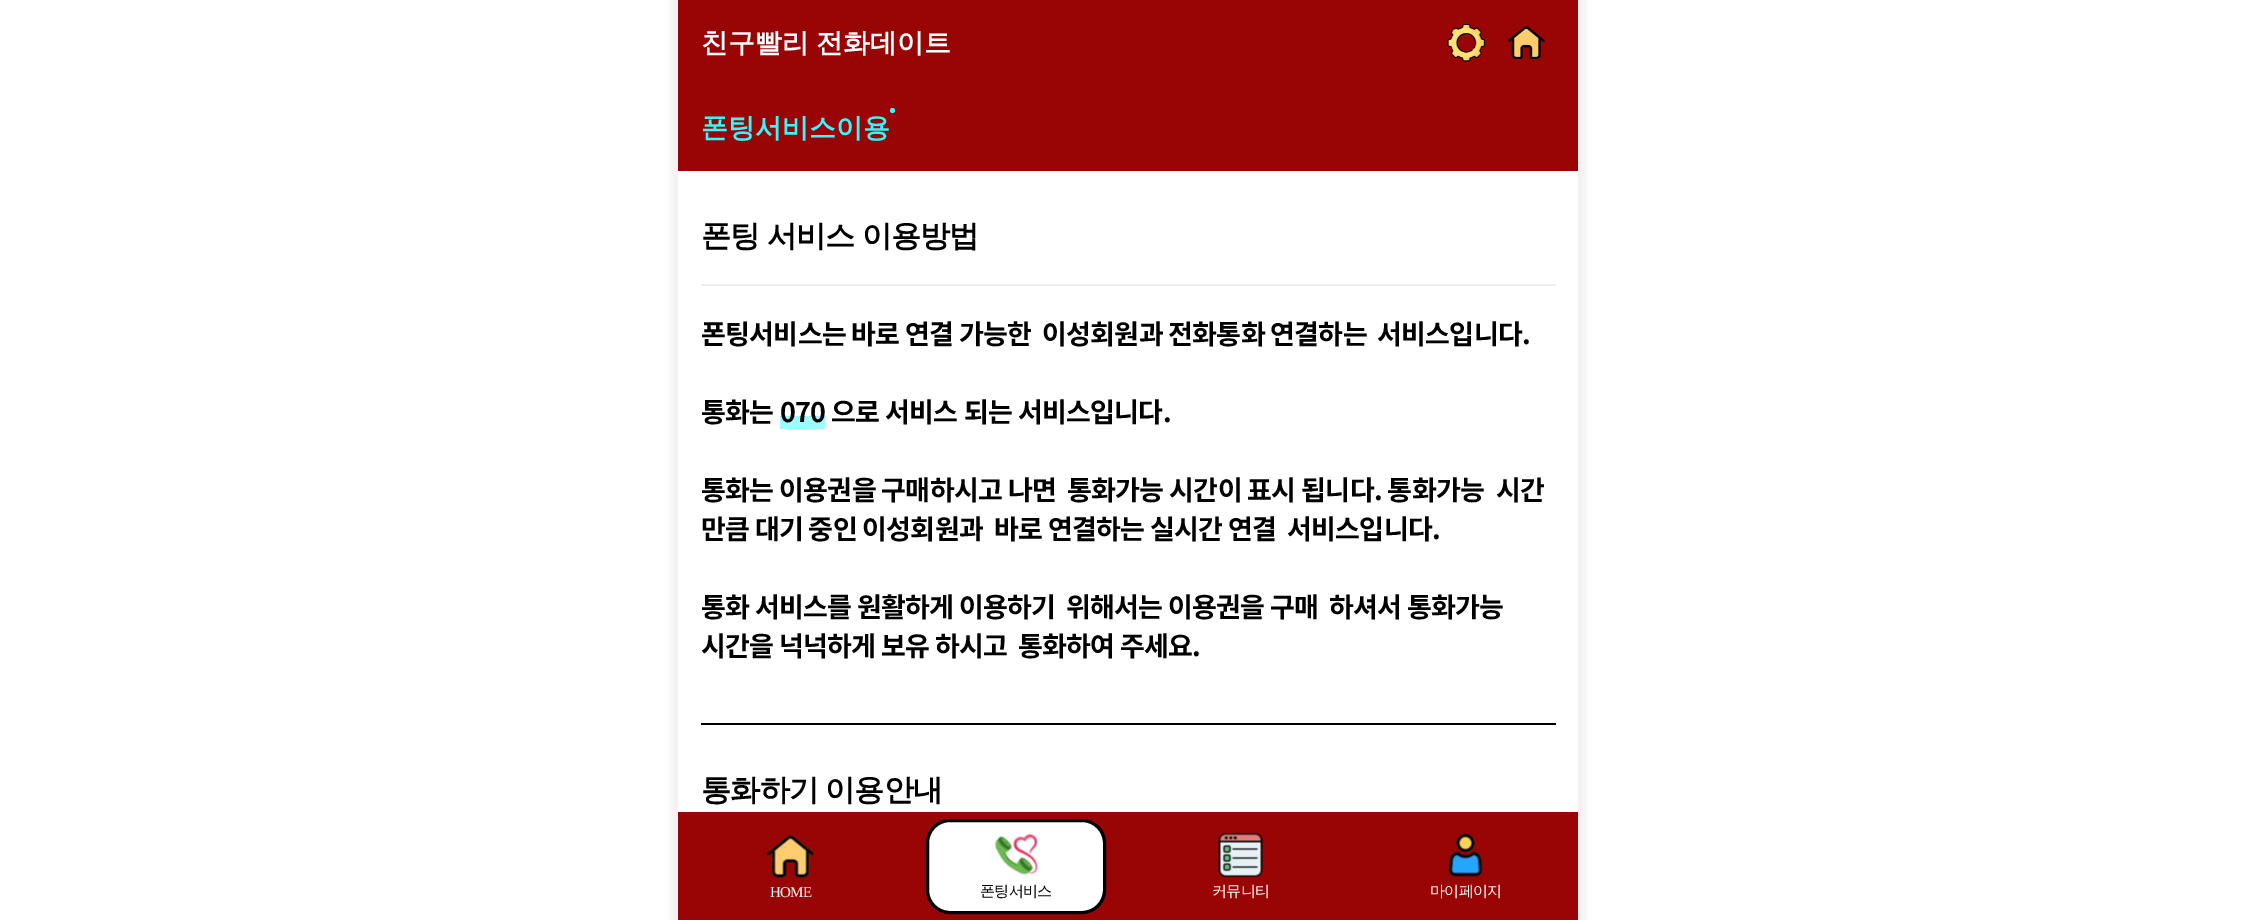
%!PS
<< /PageSize [2255 920] /PageUsesTransparency true >> setpagedevice
/rgb { dup -16 bitshift 255 div exch dup -8 bitshift 255 and 255 div exch 255 and 255 div setrgbcolor } def
/font { [ exch dup neg 0 0 3 -1 roll 0 0 ] selectfont } def
/text { moveto show } def
/alpha { dup .setfillconstantalpha .setstrokeconstantalpha } def
/circle { newpath 0 360 arc closepath } def
/roundrect { 5 dict begin { /r /h /w /y /x } { exch def } forall
  x r add y moveto x w add y 2 copy h add r arct x w add y h add x 1 index r arct
  x y h add x y r arct x y 2 copy exch w add exch r arct closepath end } def
/shadow { 12 dict begin { /a /b /q /h /w /y /x } { exch def } forall gsave /was 0 def
  9 -2 -9 { dup b mul 4 div /e exch def 1 sub .425 mul 2.718 exch exp 1 add a .99 .min exch div /now exch def
    1 1 now sub 1 was sub div sub alpha /was now def
    w h .min e 2 mul add 0 gt { x e sub y e sub w e 2 mul add h e 2 mul add
      q e add b .6 mul add w h .min 2 div e add .min 0 .max roundrect fill } if } for grestore end } def
/picture { 5 dict begin { /h /w /y /x /name } { exch def } forall
  gsave x y translate w h scale
  w h 8 [w 0 0 h 0 0] name (r) file false 3 colorimage grestore end } def
0 .pushpdf14devicefilter
0 920 translate 1 -1 scale
4 setmiterlimit
/s1 { /WenQuanYiZenHei-Bold 27 font 16#34F7FF rgb } def
16#FFFFFF rgb
0 0 2255 920 rectfill
gsave
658 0 moveto 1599 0 lineto 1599 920 lineto 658 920 lineto closepath 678 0 moveto 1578 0 lineto 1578 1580 lineto 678 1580 lineto closepath eoclip newpath
16#000000 rgb
671 -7 915 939 0 4 0.05 shadow
grestore
16#990505 rgb
678 0 900 171 rectfill
/WenQuanYiZenHei-Bold 27 font
16#FFFFFF rgb
701 52 moveto -1 0 32 (친구빨리 전화데이트) widthshow
(pic1.raw) 1447 24 39 38 picture
(pic2.raw) 1507 26 38 33 picture
16#34F7FF rgb
892.5 110.5 2.5 circle fill
(폰팅서비스이용) 701 137 text
16#000000 rgb
701 723 855 2 rectfill
16#EDEDED rgb
701 284 855 2 rectfill
/WenQuanYiZenHei-Bold 30 font
16#000000 rgb
701 246 moveto -1 0 32 -0.75 0 (폰팅 서비스 이용방법) awidthshow
/NotoSansKR-Bold 27 font
701 344 moveto -0.7 0 (폰팅서비스는 바로 연결 가능한) ashow
1042 344 moveto -0.7 0 (이성회원과 전화통화 연결하는) ashow
1377 344 moveto -0.7 0 (서비스입니다.) ashow
701 422 moveto -0.7 0 (통화는) ashow
16#A0FBFF rgb
780 416 45 13 rectfill
16#000000 rgb
780 422 moveto -0.7 0 (070) ashow
831 422 moveto 0.5 0 32 -0.7 0 (으로 서비스 되는 서비스입니다.) awidthshow
701 500 moveto 0.25 0 32 -0.7 0 (통화는 이용권을 구매하시고 나면) awidthshow
1067 500 moveto 0.25 0 32 -0.7 0 (통화가능 시간이 표시 됩니다. 통화가능) awidthshow
1496 500 moveto 0.25 0 32 -0.7 0 (시간) awidthshow
701 539 moveto -0.7 0 (만큼 대기 중인 이성회원과) ashow
994 539 moveto -0.7 0 (바로 연결하는 실시간 연결) ashow
1287 539 moveto -0.7 0 (서비스입니다.) ashow
701 617 moveto -0.7 0 (통화 서비스를 원활하게 이용하기) ashow
1066 617 moveto -0.7 0 (위해서는 이용권을 구매) ashow
1329 617 moveto -0.7 0 (하셔서 통화가능) ashow
701 656 moveto -0.7 0 (시간을 넉넉하게 보유 하시고) ashow
1018 656 moveto -0.7 0 (통화하여 주세요.) ashow
/WenQuanYiZenHei-Bold 30 font
701 800 moveto -1 0 32 -0.75 0 (통화하기 이용안내) awidthshow
16#990505 rgb
678 812 900 108 rectfill
(pic3.raw) 766 835 49 43 picture
/LiberationSerif-Regular 15 font
16#FFFFFF rgb
770 897 moveto -0.75 0 (HOME) ashow
927.5 820.5 177 92 22.5 roundrect gsave fill grestore
16#000000 rgb
3 setlinewidth
stroke
(pic4.raw) 994 833 44 42 picture
/WenQuanYiZenHei-Medium 15 font
980 896 moveto -0.75 0 (폰팅서비스) ashow
(pic5.raw) 1218 832 45 46 picture
16#FFFFFF rgb
1212 896 moveto -0.75 0 (커뮤니티) ashow
(pic6.raw) 1448 833 35 44 picture
1430 896 moveto -0.75 0 (마이페이지) ashow
.poppdf14devicefilter showpage
